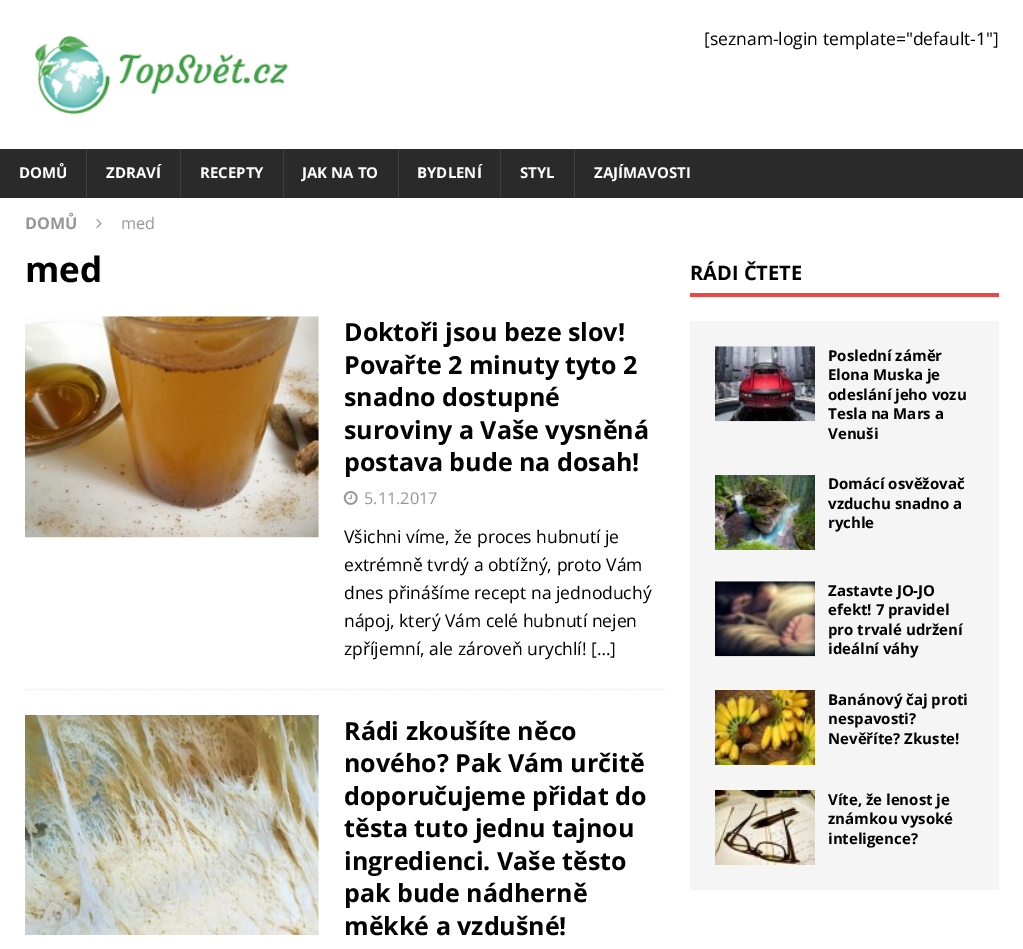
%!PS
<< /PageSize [1023 949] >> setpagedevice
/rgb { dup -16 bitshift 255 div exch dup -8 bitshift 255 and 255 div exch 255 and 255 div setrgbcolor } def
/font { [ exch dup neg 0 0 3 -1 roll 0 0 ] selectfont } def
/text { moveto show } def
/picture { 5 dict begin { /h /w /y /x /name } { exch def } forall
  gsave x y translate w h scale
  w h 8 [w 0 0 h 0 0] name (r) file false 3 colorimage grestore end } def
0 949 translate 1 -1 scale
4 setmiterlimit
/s1 { /OpenSans-Regular 17.5 font 16#000000 rgb } def
/s2 { /OpenSans-Bold 15 font 16#FFFFFF rgb } def
/s3 { /OpenSans-Bold 16.25 font 16#979797 rgb } def
/s4 { /OpenSans-Regular 16.25 font 16#979797 rgb } def
/s5 { /OpenSans-Bold 35 font 16#000000 rgb } def
/s6 { /OpenSans-Bold 25 font 16#000000 rgb } def
/s7 { /OpenSans-Bold 20 font 16#000000 rgb } def
/s8 { /OpenSans-Bold 15 font 16#000000 rgb } def
16#FFFFFF rgb
0 0 1023 949 rectfill
(pic1.raw) 34 35 254 79 picture
s1
([seznam-login template="default-1"]) 704 45 text
16#2A2A2A rgb
0 149 1023 49 rectfill
s2
(DOMŮ) 19 178 text
16#3F3F3F rgb
86 149 1 49 rectfill
s2
(ZDRAVÍ) 106 178 text
16#3F3F3F rgb
180 149 1 49 rectfill
s2
(RECEPTY) 200 178 text
16#3F3F3F rgb
283 149 1 49 rectfill
s2
(JAK NA TO) 302 178 text
16#3F3F3F rgb
398 149 1 49 rectfill
s2
(BYDLENÍ) 417 178 text
16#3F3F3F rgb
500 149 1 49 rectfill
s2
(STYL) 520 178 text
16#3F3F3F rgb
574 149 1 49 rectfill
s2
(ZAJÍMAVOSTI) 594 178 text
s3
(DOMŮ) 25 229 text
(pic2.raw) 96 219 6 9 picture
s4
(med) 121 229 text
s5
(med) 25 282 text
16#EBEBEB rgb
1.2 setlinewidth
[1.25 1.25] 0 setdash
25 689.5 moveto 666 689.5 lineto stroke
(pic3.raw) 25 316 294 222 picture
s6
(Doktoři jsou beze slov!) 344 341 text
(Povařte 2 minuty tyto 2) 344 374 text
(snadno dostupné) 344 406 text
(suroviny a Vaše vysněná) 344 439 text
(postava bude na dosah!) 344 471 text
(pic4.raw) 343 491 15 14 picture
s4
(5.11.2017) 364 504 text
s1
(Všichni víme, že proces hubnutí je) 344 543 text
(extrémně tvrdý a obtížný, proto Vám) 344 571 text
(dnes přinášíme recept na jednoduchý) 344 599 text
(nápoj, který Vám celé hubnutí nejen) 344 627 text
(zpříjemní, ale zároveň urychlí! […]) 344 655 text
(pic5.raw) 25 715 294 220 picture
s6
(Rádi zkoušíte něco) 344 740 text
(nového? Pak Vám určitě) 344 772 text
(doporučujeme přidat do) 344 805 text
(těsta tuto jednu tajnou) 344 837 text
(ingredienci. Vaše těsto) 344 870 text
(pak bude nádherně) 344 902 text
(měkké a vzdušné!) 344 935 text
16#E64946 rgb
690 293 309 4 rectfill
s7
(RÁDI ČTETE) 690 280 text
16#F5F5F5 rgb
690 321 309 569 rectfill
(pic6.raw) 715 346 100 76 picture
s8
(Poslední záměr) 828 361 text
(Elona Muska je) 828 380 text
(odeslání jeho vozu) 828 400 text
(Tesla na Mars a) 828 419 text
(Venuši) 828 439 text
(pic7.raw) 715 475 100 75 picture
(Domácí osvěžovač) 828 489 text
(vzduchu snadno a) 828 509 text
(rychle) 828 528 text
(pic8.raw) 715 581 100 76 picture
(Zastavte JO-JO) 828 596 text
(efekt! 7 pravidel) 828 615 text
(pro trvalé udržení) 828 635 text
(ideální váhy) 828 654 text
(pic9.raw) 715 690 100 75 picture
(Banánový čaj proti) 828 705 text
(nespavosti?) 828 724 text
(Nevěříte? Zkuste!) 828 744 text
(pic10.raw) 715 790 100 75 picture
(Víte, že lenost je) 828 805 text
(známkou vysoké) 828 824 text
(inteligence?) 828 844 text
showpage
